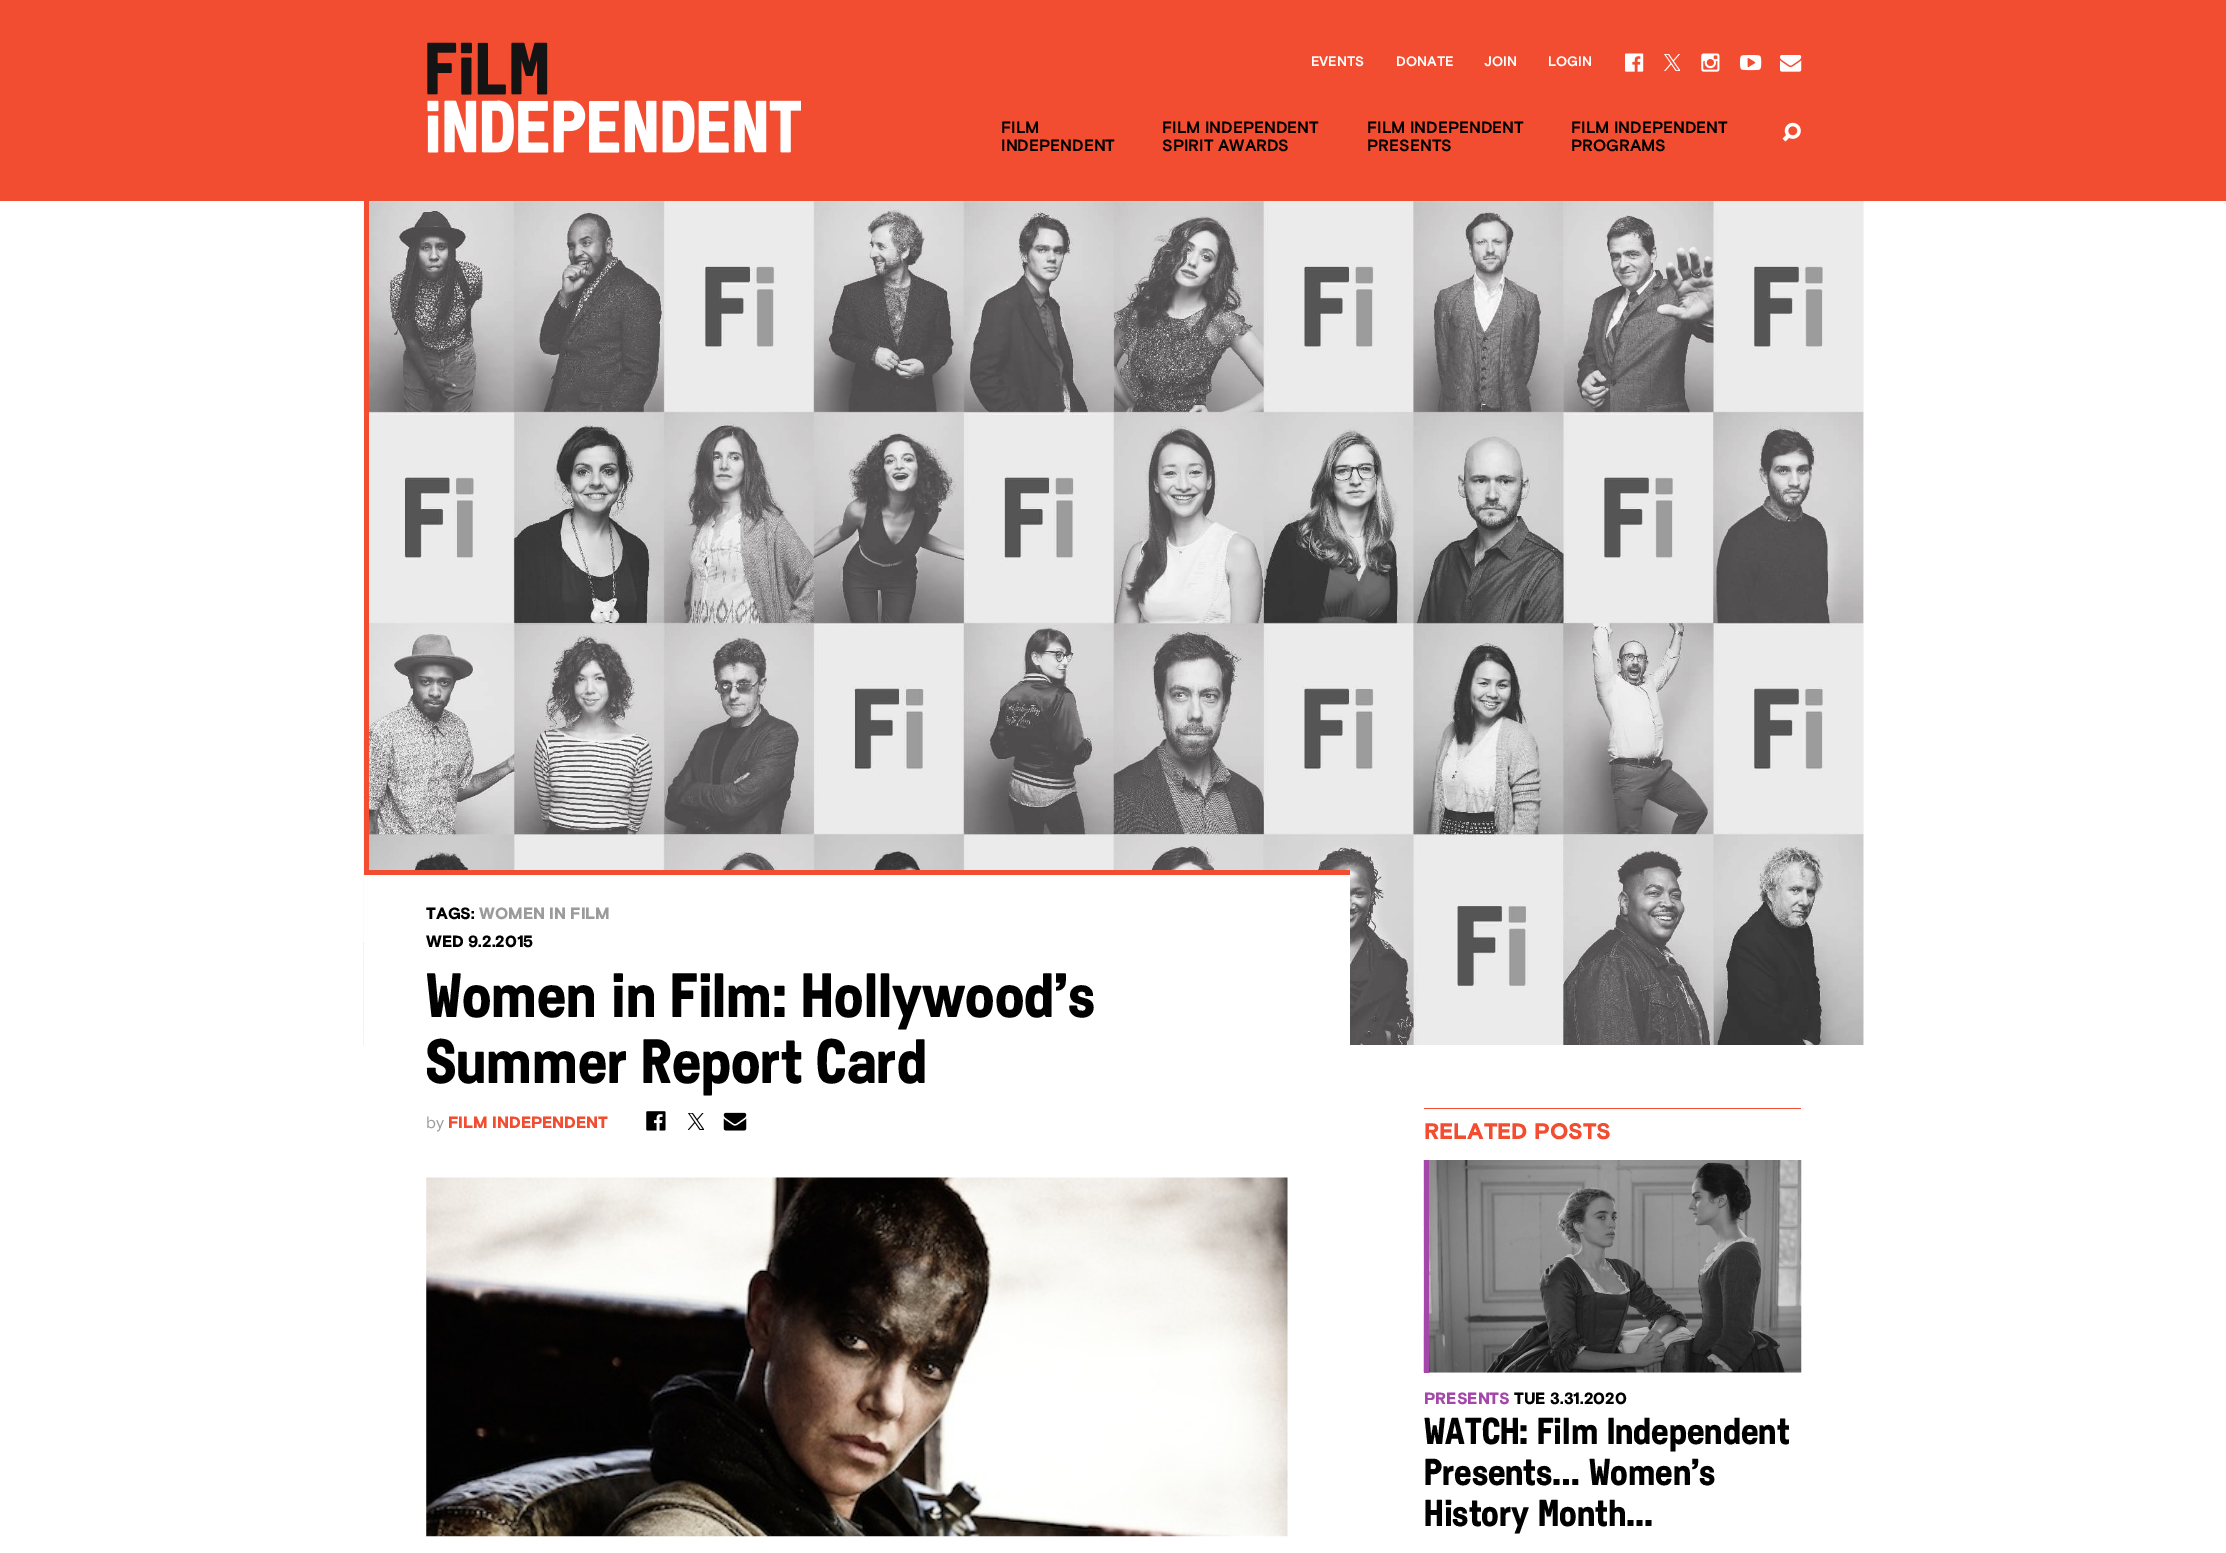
%!PS
<< /PageSize [2226 1553] >> setpagedevice
/rgb { dup -16 bitshift 255 div exch dup -8 bitshift 255 and 255 div exch 255 and 255 div setrgbcolor } def
/font { [ exch dup neg 0 0 3 -1 roll 0 0 ] selectfont } def
/text { moveto show } def
/picture { 5 dict begin { /h /w /y /x /name } { exch def } forall
  gsave x y translate w h scale
  w h 8 [w 0 0 h 0 0] name (r) file false 3 colorimage grestore end } def
0 1553 translate 1 -1 scale
4 setmiterlimit
/s1 { /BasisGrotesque-Bold 13.75 font 16#FFFFFF rgb } def
/s2 { /BasisGrotesque-Bold 16.25 font 16#000000 rgb } def
/s3 { /BasisGrotesque-Black 16.25 font 16#000000 rgb } def
/s4 { /BasisGrotesque-Black 16.25 font 16#9B9B9B rgb } def
/s5 { /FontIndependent-Regular 62.5 font 16#000000 rgb } def
/s6 { /BasisGrotesque-Regular 16.25 font 16#9B9B9B rgb } def
/s7 { /BasisGrotesque-Black 16.25 font 16#F24C31 rgb } def
/s8 { /BasisGrotesque-Black 22.5 font 16#F24C31 rgb } def
/s9 { /BasisGrotesque-Black 16.25 font 16#A446AA rgb } def
/s10 { /FontIndependent-Regular 37.5 font 16#000000 rgb } def
16#FFFFFF rgb
0 0 2226 1553 rectfill
16#F24C31 rgb
0 0 2226 201 rectfill
(pic1.raw) 427 42 374 111 picture
s1
(EVENTS) 1311 66 text
(DONATE) 1396 66 text
(JOIN) 1484 66 text
(LOGIN) 1548 66 text
(pic2.raw) 1625 53 19 19 picture
(pic3.raw) 1664 54 16 17 picture
(pic4.raw) 1701 53 19 19 picture
(pic5.raw) 1740 55 22 16 picture
(pic6.raw) 1780 55 22 17 picture
s2
(FILM) 1001 133 text
(INDEPENDENT) 1001 151 text
(FILM INDEPENDENT) 1162 133 text
(SPIRIT AWARDS) 1162 151 text
(FILM INDEPENDENT) 1367 133 text
(PRESENTS) 1367 151 text
(FILM INDEPENDENT) 1571 133 text
(PROGRAMS) 1571 151 text
(pic7.raw) 1782 122 19 20 picture
16#F0F0F0 rgb
369 201 1495 844 rectfill
(pic8.raw) 363 201 1501 844 picture
16#F24C31 rgb
364 201 5 669 rectfill
16#FFFFFF rgb
364 875 986 170 rectfill
16#F24C31 rgb
364 870 986 5 rectfill
s3
(TAGS:) 426 919 text
s4
(WOMEN IN FILM) 479 919 text
s3
(WED 9.2.2015) 426 947 text
s5
(Women in Film: Hollywood’s) 426 1017 text
(Summer Report Card) 426 1083 text
s6
(by) 426 1128 text
s7
(FILM INDEPENDENT) 448 1128 text
(pic9.raw) 646 1111 20 20 picture
(pic10.raw) 688 1113 16 17 picture
(pic11.raw) 723 1112 24 19 picture
(pic12.raw) 426 1177 862 360 picture
1424 1108 377 1 rectfill
s8
(RELATED POSTS) 1424 1139 text
16#F0F0F0 rgb
1429 1372 372 1 rectfill
(pic13.raw) 1423 1160 379 213 picture
16#A446AA rgb
1424 1160 5 213 rectfill
s9
(PRESENTS) 1424 1404 text
s3
(TUE 3.31.2020) 1514 1404 text
s10
(WATCH: Film Independent) 1424 1444 text
(Presents… Women’s) 1424 1485 text
(History Month...) 1424 1526 text
showpage
